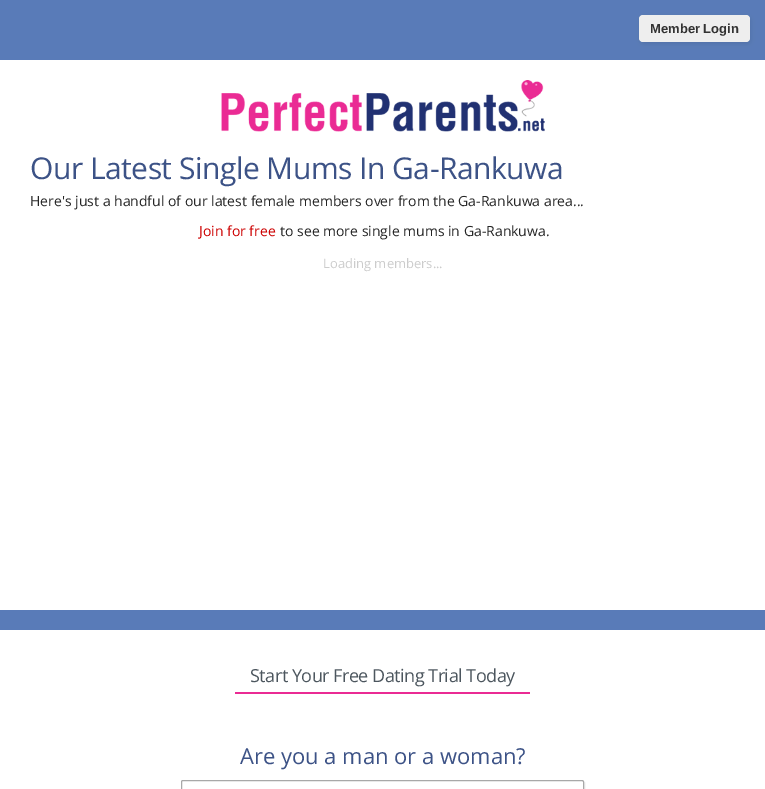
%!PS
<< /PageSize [765 789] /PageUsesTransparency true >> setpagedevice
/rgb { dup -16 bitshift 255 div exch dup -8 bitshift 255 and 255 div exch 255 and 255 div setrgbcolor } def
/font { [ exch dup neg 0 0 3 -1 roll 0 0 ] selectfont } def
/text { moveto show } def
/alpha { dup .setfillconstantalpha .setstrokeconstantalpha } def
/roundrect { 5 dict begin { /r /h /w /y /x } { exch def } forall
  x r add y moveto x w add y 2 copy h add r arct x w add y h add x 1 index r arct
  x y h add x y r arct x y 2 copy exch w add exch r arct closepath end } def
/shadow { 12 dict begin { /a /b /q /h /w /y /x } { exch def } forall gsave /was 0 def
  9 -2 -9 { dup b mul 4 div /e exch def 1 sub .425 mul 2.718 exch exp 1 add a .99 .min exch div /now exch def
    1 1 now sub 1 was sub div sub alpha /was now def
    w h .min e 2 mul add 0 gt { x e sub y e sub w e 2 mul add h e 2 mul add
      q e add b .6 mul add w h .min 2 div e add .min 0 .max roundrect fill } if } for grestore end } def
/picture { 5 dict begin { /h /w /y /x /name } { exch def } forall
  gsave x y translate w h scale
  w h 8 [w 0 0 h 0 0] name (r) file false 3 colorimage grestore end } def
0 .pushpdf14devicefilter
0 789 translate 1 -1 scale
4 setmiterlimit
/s1 { /LiberationSans-Bold 13 font 16#333333 rgb } def
/s2 { /OpenSans-Regular 14 font 16#252525 rgb } def
/s3 { /OpenSans-Regular 14 font 16#CC0000 rgb } def
/s4 { /OpenSans-Regular 13 font 16#CCCCCC rgb } def
/s5 { /OpenSans-Regular 22 font 16#3C5286 rgb } def
16#597BB8 rgb
0 0 765 789 rectfill
16#000000 rgb
640 17 111 27 4 2 0.08 shadow
16#EEEEEE rgb
639 15 111 27 4 roundrect fill
s1
(Member Login) 650 33 text
16#FFFFFF rgb
0 60 765 729 rectfill
(pic1.raw) 221 80 324 52 picture
/OpenSans-Regular 30 font
16#3C5286 rgb
30 179 moveto -0.5 0 (Our Latest Single Mums In Ga-Rankuwa) ashow
s2
(Here's just a handful of our latest female members over from the Ga-Rankuwa area...) 30 206 text
s3
(Join for free) 199 236 text
s2
(to see more single mums in Ga-Rankuwa.) 280 236 text
s4
(Loading members...) 323 268 text
16#597BB8 rgb
0 610 765 20 rectfill
16#EA2B94 rgb
235 692 295 2 rectfill
/OpenSans-Regular 18 font
16#4C565E rgb
250 682 moveto -0.5 0 (Start Your Free Dating Trial Today) ashow
s5
(Are you a man or a woman?) 240 764 text
gsave
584 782 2 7 rectclip
16#000000 rgb
182 782 403 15 2 2 0.08 shadow
grestore
16#A8A8A8 rgb
181.5 780.5 402 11 1.5 roundrect stroke
.poppdf14devicefilter showpage
